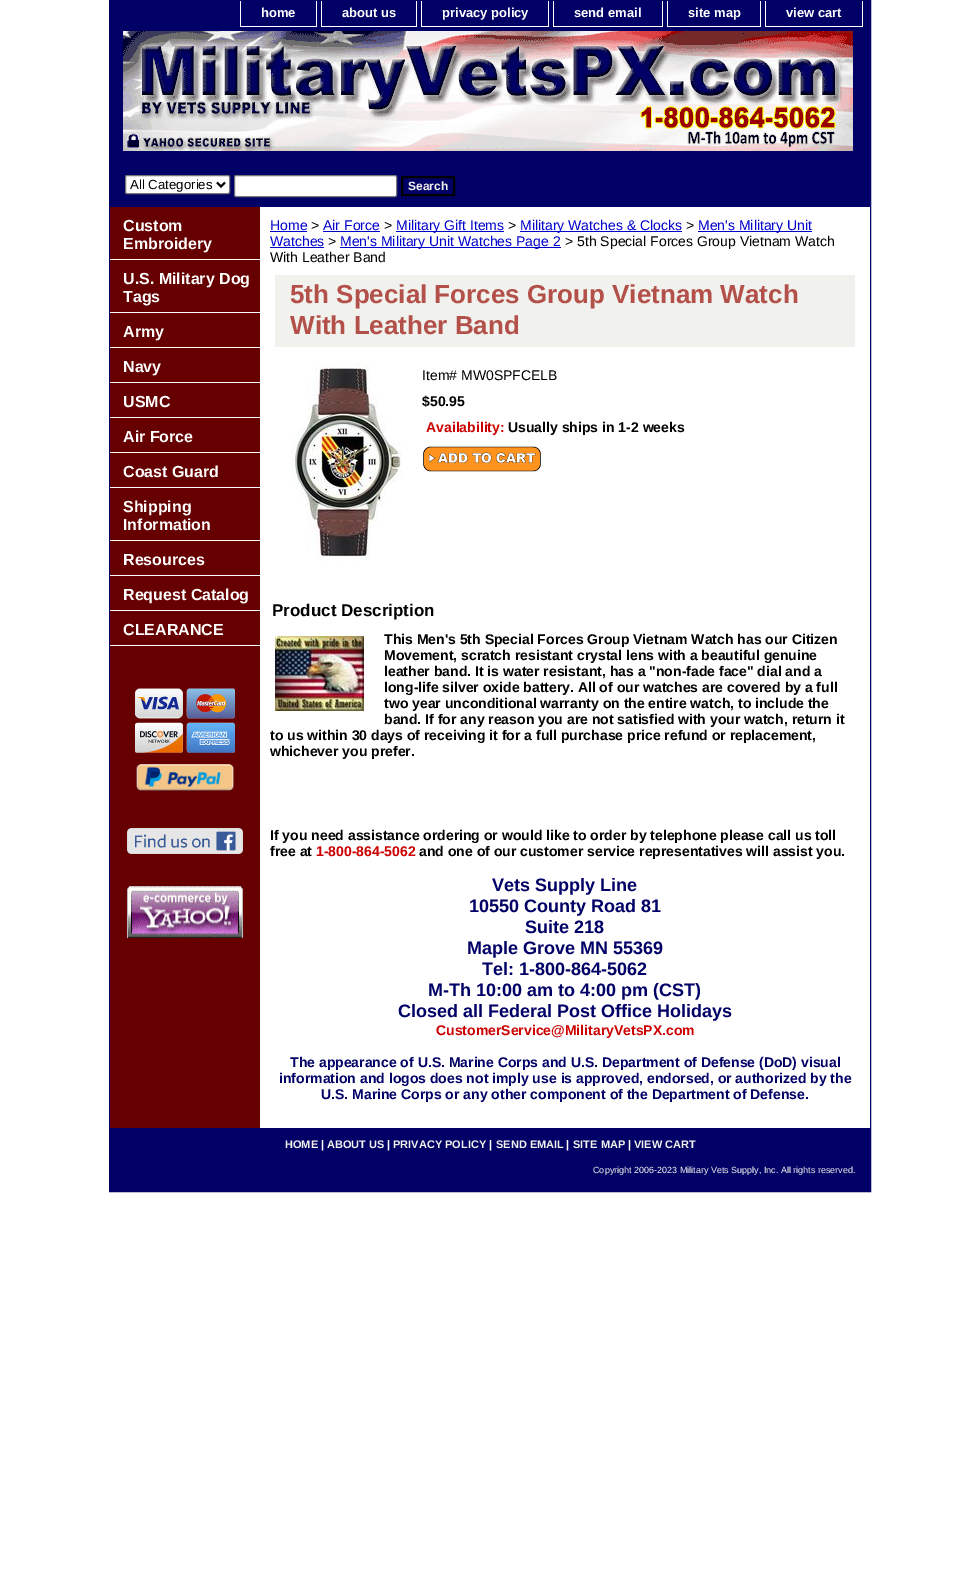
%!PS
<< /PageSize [980 1571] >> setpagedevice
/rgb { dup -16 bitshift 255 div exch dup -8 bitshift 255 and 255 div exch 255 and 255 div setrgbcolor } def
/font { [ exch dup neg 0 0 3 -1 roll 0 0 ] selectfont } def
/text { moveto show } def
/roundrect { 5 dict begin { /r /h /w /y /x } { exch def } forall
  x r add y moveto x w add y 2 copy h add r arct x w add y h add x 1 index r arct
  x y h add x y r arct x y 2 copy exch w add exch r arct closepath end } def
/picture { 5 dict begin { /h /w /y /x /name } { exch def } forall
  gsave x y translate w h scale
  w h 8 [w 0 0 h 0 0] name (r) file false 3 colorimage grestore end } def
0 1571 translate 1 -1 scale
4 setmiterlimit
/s1 { /LiberationSans-Bold 13 font 16#FFFFFF rgb } def
/s2 { /LiberationSans-Regular 13.25 font 16#000000 rgb } def
/s3 { /LiberationSans-Bold 12 font 16#F1F2ED rgb } def
/s4 { /LiberationSans-Bold 16 font 16#FFFFFF rgb } def
/s5 { /LiberationSans-Regular 14 font 16#0000CC rgb } def
/s6 { /LiberationSans-Regular 14 font 16#000000 rgb } def
/s7 { /LiberationSans-Bold 26 font 16#B3504A rgb } def
/s8 { /LiberationSans-Bold 14 font 16#000000 rgb } def
/s9 { /LiberationSans-Bold 14 font 16#CC0000 rgb } def
/s10 { /LiberationSans-Bold 17 font 16#000000 rgb } def
/s11 { /LiberationSans-Bold 18 font 16#000066 rgb } def
/s12 { /LiberationSans-Bold 14 font 16#000066 rgb } def
/s13 { /LiberationSans-Bold 11 font 16#F1F2ED rgb } def
/s14 { /LiberationSans-Bold 11 font 16#FFFFFF rgb } def
/s15 { /LiberationSans-Regular 9 font 16#F1F2ED rgb } def
16#FFFFFF rgb
0 0 980 1571 rectfill
16#000066 rgb
109.5 0.5 761 1191 rectstroke
110 1 760 206 rectfill
16#FFFFFF rgb
316 1 1 26 rectfill
240 26 77 1 rectfill
240 1 1 26 rectfill
s1
(home) 261 17 text
416 1 1 26 rectfill
321 26 96 1 rectfill
321 1 1 26 rectfill
(about us) 342 17 text
548 1 1 26 rectfill
421 26 128 1 rectfill
421 1 1 26 rectfill
(privacy policy) 442 17 text
662 1 1 26 rectfill
553 26 110 1 rectfill
553 1 1 26 rectfill
(send email) 574 17 text
760 1 1 26 rectfill
667 26 94 1 rectfill
667 1 1 26 rectfill
(site map) 688 17 text
862 1 1 26 rectfill
765 26 98 1 rectfill
765 1 1 26 rectfill
(view cart) 786 17 text
(pic1.raw) 123 31 730 120 picture
125.5 175.5 104 18 1.5 roundrect gsave fill grestore
16#767676 rgb
stroke
16#000000 rgb
2 setlinewidth
217 182.5 moveto 221 186.5 lineto 225 182.5 lineto stroke
s2
(All Categories) 130 189 text
16#FFFFFF rgb
234.5 175.5 162 21 1.5 roundrect gsave fill grestore
16#767676 rgb
1 setlinewidth
stroke
16#000000 rgb
2 setlinewidth
402 177 52 18 rectstroke
s3
(Search) 408 190 text
16#660000 rgb
110 207 150 921 rectfill
16#FFFFFF rgb
110 259 150 1 rectfill
s4
(Custom) 123 231 text
(Embroidery) 123 249 text
110 312 150 1 rectfill
(U.S. Military Dog) 123 284 text
(Tags) 123 302 text
110 347 150 1 rectfill
(Army) 123 337 text
110 382 150 1 rectfill
(Navy) 123 372 text
110 417 150 1 rectfill
(USMC) 123 407 text
110 452 150 1 rectfill
(Air Force) 123 442 text
110 487 150 1 rectfill
(Coast Guard) 123 477 text
110 540 150 1 rectfill
(Shipping) 123 512 text
(Information) 123 530 text
110 575 150 1 rectfill
(Resources) 123 565 text
110 610 150 1 rectfill
(Request Catalog) 123 600 text
110 645 150 1 rectfill
(CLEARANCE) 123 635 text
(pic2.raw) 135 683 100 70 picture
(pic3.raw) 136 764 99 27 picture
(pic4.raw) 127 828 116 26 picture
(pic5.raw) 127 886 116 52 picture
s5
(Home) 270 230 text
270 231 37 1 rectfill
s6
(>) 311 230 text
s5
(Air Force) 323 230 text
323 231 57 1 rectfill
s6
(>) 384 230 text
16#0000CC rgb
396 231 108 1 rectfill
(Military Gift Items) 396 230 text
s6
(>) 508 230 text
16#0000CC rgb
520 231 162 1 rectfill
(Military Watches & Clocks) 520 230 text
s6
(>) 686 230 text
16#0000CC rgb
698 231 114 1 rectfill
(Men's Military Unit) 698 230 text
(Watches) 270 246 text
270 247 54 1 rectfill
s6
(>) 328 246 text
16#0000CC rgb
340 247 221 1 rectfill
(Men's Military Unit Watches Page 2) 340 246 text
s6
(> 5th Special Forces Group Vietnam Watch) 565 246 text
(With Leather Band) 270 262 text
16#F1F2ED rgb
275 275 580 72 rectfill
s7
(5th Special Forces Group Vietnam Watch) 290 303 text
(With Leather Band) 290 334 text
(pic6.raw) 290 362 112 199 picture
s6
(Item# MW0SPFCELB) 422 380 text
s8
($50.95) 422 406 text
s9
(Availability:) 426 432 text
s8
(Usually ships in 1-2 weeks) 508 432 text
(pic7.raw) 423 446 118 26 picture
s10
(Product Description) 272 616 text
s8
(This Men's 5th Special Forces Group Vietnam Watch has our Citizen) 384 644 text
(Movement, scratch resistant crystal lens with a beautiful genuine) 384 660 text
(leather band. It is water resistant, has a "non-fade face" dial and a) 384 676 text
(long-life silver oxide battery. All of our watches are covered by a full) 384 692 text
(two year unconditional warranty on the entire watch, to include the) 384 708 text
(band. If for any reason you are not satisfied with your watch, return it) 384 724 text
(to us within 30 days of receiving it for a full purchase price refund or replacement,) 270 740 text
(whichever you prefer.) 270 756 text
(pic8.raw) 275 636 89 75 picture
(If you need assistance ordering or would like to order by telephone please call us toll) 270 840 text
(free at) 270 856 text
s9
(1-800-864-5062) 316 856 text
s8
(and one of our customer service representatives will assist you.) 419 856 text
s11
(Vets Supply Line) 492 891 text
(10550 County Road 81) 469 912 text
(Suite 218) 525 933 text
(Maple Grove MN 55369) 467 954 text
(Tel: 1-800-864-5062) 482 975 text
(M-Th 10:00 am to 4:00 pm \(CST\)) 428 996 text
(Closed all Federal Post Office Holidays) 398 1017 text
s9
(CustomerService@MilitaryVetsPX.com) 436 1035 text
s12
(The appearance of U.S. Marine Corps and U.S. Department of Defense \(DoD\) visual) 290 1067 text
(information and logos does not imply use is approved, endorsed, or authorized by the) 279 1083 text
(U.S. Marine Corps or any other component of the Department of Defense.) 321 1099 text
110 1128 760 63 rectfill
s13
(HOME) 285 1148 text
s14
(|) 321 1148 text
s13
(ABOUT US) 327 1148 text
s14
(|) 387 1148 text
s13
(PRIVACY POLICY) 393 1148 text
s14
(|) 489 1148 text
s13
(SEND EMAIL) 496 1148 text
s14
(|) 566 1148 text
s13
(SITE MAP) 573 1148 text
s14
(|) 628 1148 text
s13
(VIEW CART) 634 1148 text
s15
(Copyright 2006-2023 Military Vets Supply, Inc. All rights reserved.) 593 1173 text
showpage
